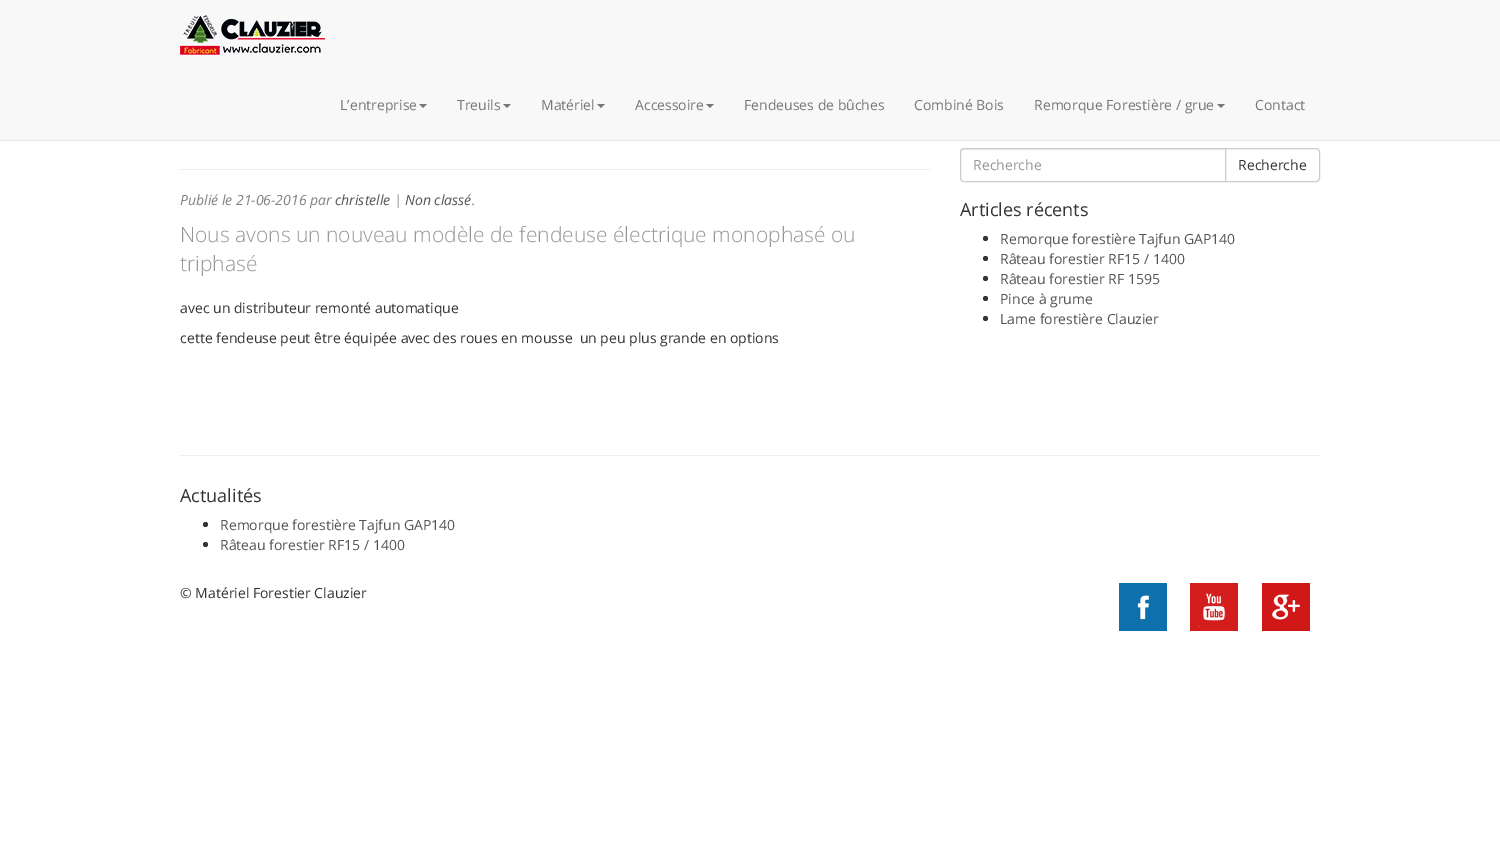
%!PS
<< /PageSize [1500 865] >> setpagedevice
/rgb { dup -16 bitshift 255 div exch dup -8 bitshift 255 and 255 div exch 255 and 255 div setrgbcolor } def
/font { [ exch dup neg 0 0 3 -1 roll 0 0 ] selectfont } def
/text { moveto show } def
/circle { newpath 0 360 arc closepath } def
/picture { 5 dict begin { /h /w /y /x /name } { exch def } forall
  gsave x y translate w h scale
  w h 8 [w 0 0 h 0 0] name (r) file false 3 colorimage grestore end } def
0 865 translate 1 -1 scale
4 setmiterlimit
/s1 { /OpenSans-Regular 14 font 16#777777 rgb } def
/s2 { /OpenSans-Italic 14 font 16#808080 rgb } def
/s3 { /OpenSans-Italic 14 font 16#555353 rgb } def
/s4 { /OpenSans-Light 21 font 16#969696 rgb } def
/s5 { /OpenSans-Regular 14 font 16#333333 rgb } def
/s6 { /OpenSans-Regular 14 font 16#969696 rgb } def
/s7 { /OpenSans-Regular 18 font 16#333333 rgb } def
/s8 { /OpenSans-Regular 14 font 16#555353 rgb } def
16#FFFFFF rgb
0 0 1500 865 rectfill
16#F8F8F8 rgb
0 0 1500 140 rectfill
16#E7E7E7 rgb
0 140 1500 1 rectfill
(pic1.raw) 180 15 145 40 picture
s1
(L’entreprise) 340 110 text
419 104 moveto 427 104 lineto 423 108 lineto closepath fill
(Treuils) 457 110 text
503 104 moveto 511 104 lineto 507 108 lineto closepath fill
(Matériel) 541 110 text
597 104 moveto 605 104 lineto 601 108 lineto closepath fill
(Accessoire) 635 110 text
706 104 moveto 714 104 lineto 710 108 lineto closepath fill
(Fendeuses de bûches) 744 110 text
(Combiné Bois) 914 110 text
(Remorque Forestière / grue) 1034 110 text
1217 104 moveto 1225 104 lineto 1221 108 lineto closepath fill
(Contact) 1255 110 text
16#EEEEEE rgb
180 169 750 1 rectfill
s2
(Publié le 21-06-2016 par) 180 205 text
s3
(christelle) 335 205 text
s2
(|) 394 205 text
s3
(Non classé) 405 205 text
s2
(.) 472 205 text
s4
(Nous avons un nouveau modèle de fendeuse électrique monophasé ou) 180 242 text
(triphasé) 180 271 text
s5
(avec un distributeur remonté automatique) 180 313 text
(cette fendeuse peut être équipée avec des roues en mousse  un peu plus grande en options) 180 343 text
16#ECECEC rgb
964 150 moveto 1225 150 lineto 1225 149 lineto 964 149 lineto 962 149 961 150 961 152 curveto 961 153 lineto 961 151 962 150 964 150 curveto closepath fill
16#CCCCCC rgb
964 148.5 moveto 1225.5 148.5 lineto 1225.5 181.5 lineto 964 181.5 lineto 962 181.5 960.5 180 960.5 178 curveto 960.5 152 lineto 960.5 150 962 148.5 964 148.5 curveto closepath stroke
s6
(Recherche) 973 170 text
16#FFFFFF rgb
1225.5 148.5 moveto 1316 148.5 lineto 1318 148.5 1319.5 150 1319.5 152 curveto 1319.5 178 lineto 1319.5 180 1318 181.5 1316 181.5 curveto 1225.5 181.5 lineto closepath gsave fill grestore
16#CCCCCC rgb
stroke
s5
(Recherche) 1238 170 text
s7
(Articles récents) 960 216 text
985.5 238.5 2.5 circle fill
s8
(Remorque forestière Tajfun GAP140) 1000 244 text
16#333333 rgb
985.5 258.5 2.5 circle fill
s8
(Râteau forestier RF15 / 1400) 1000 264 text
16#333333 rgb
985.5 278.5 2.5 circle fill
s8
(Râteau forestier RF 1595) 1000 284 text
16#333333 rgb
985.5 298.5 2.5 circle fill
s8
(Pince à grume) 1000 304 text
16#333333 rgb
985.5 318.5 2.5 circle fill
s8
(Lame forestière Clauzier) 1000 324 text
16#EEEEEE rgb
180 455 1140 1 rectfill
s7
(Actualités) 180 502 text
205.5 524.5 2.5 circle fill
s8
(Remorque forestière Tajfun GAP140) 220 530 text
16#333333 rgb
205.5 544.5 2.5 circle fill
s8
(Râteau forestier RF15 / 1400) 220 550 text
s5
(© Matériel Forestier Clauzier) 180 598 text
(pic2.raw) 1119 583 48 48 picture
(pic3.raw) 1190 583 48 48 picture
(pic4.raw) 1262 583 48 48 picture
showpage
